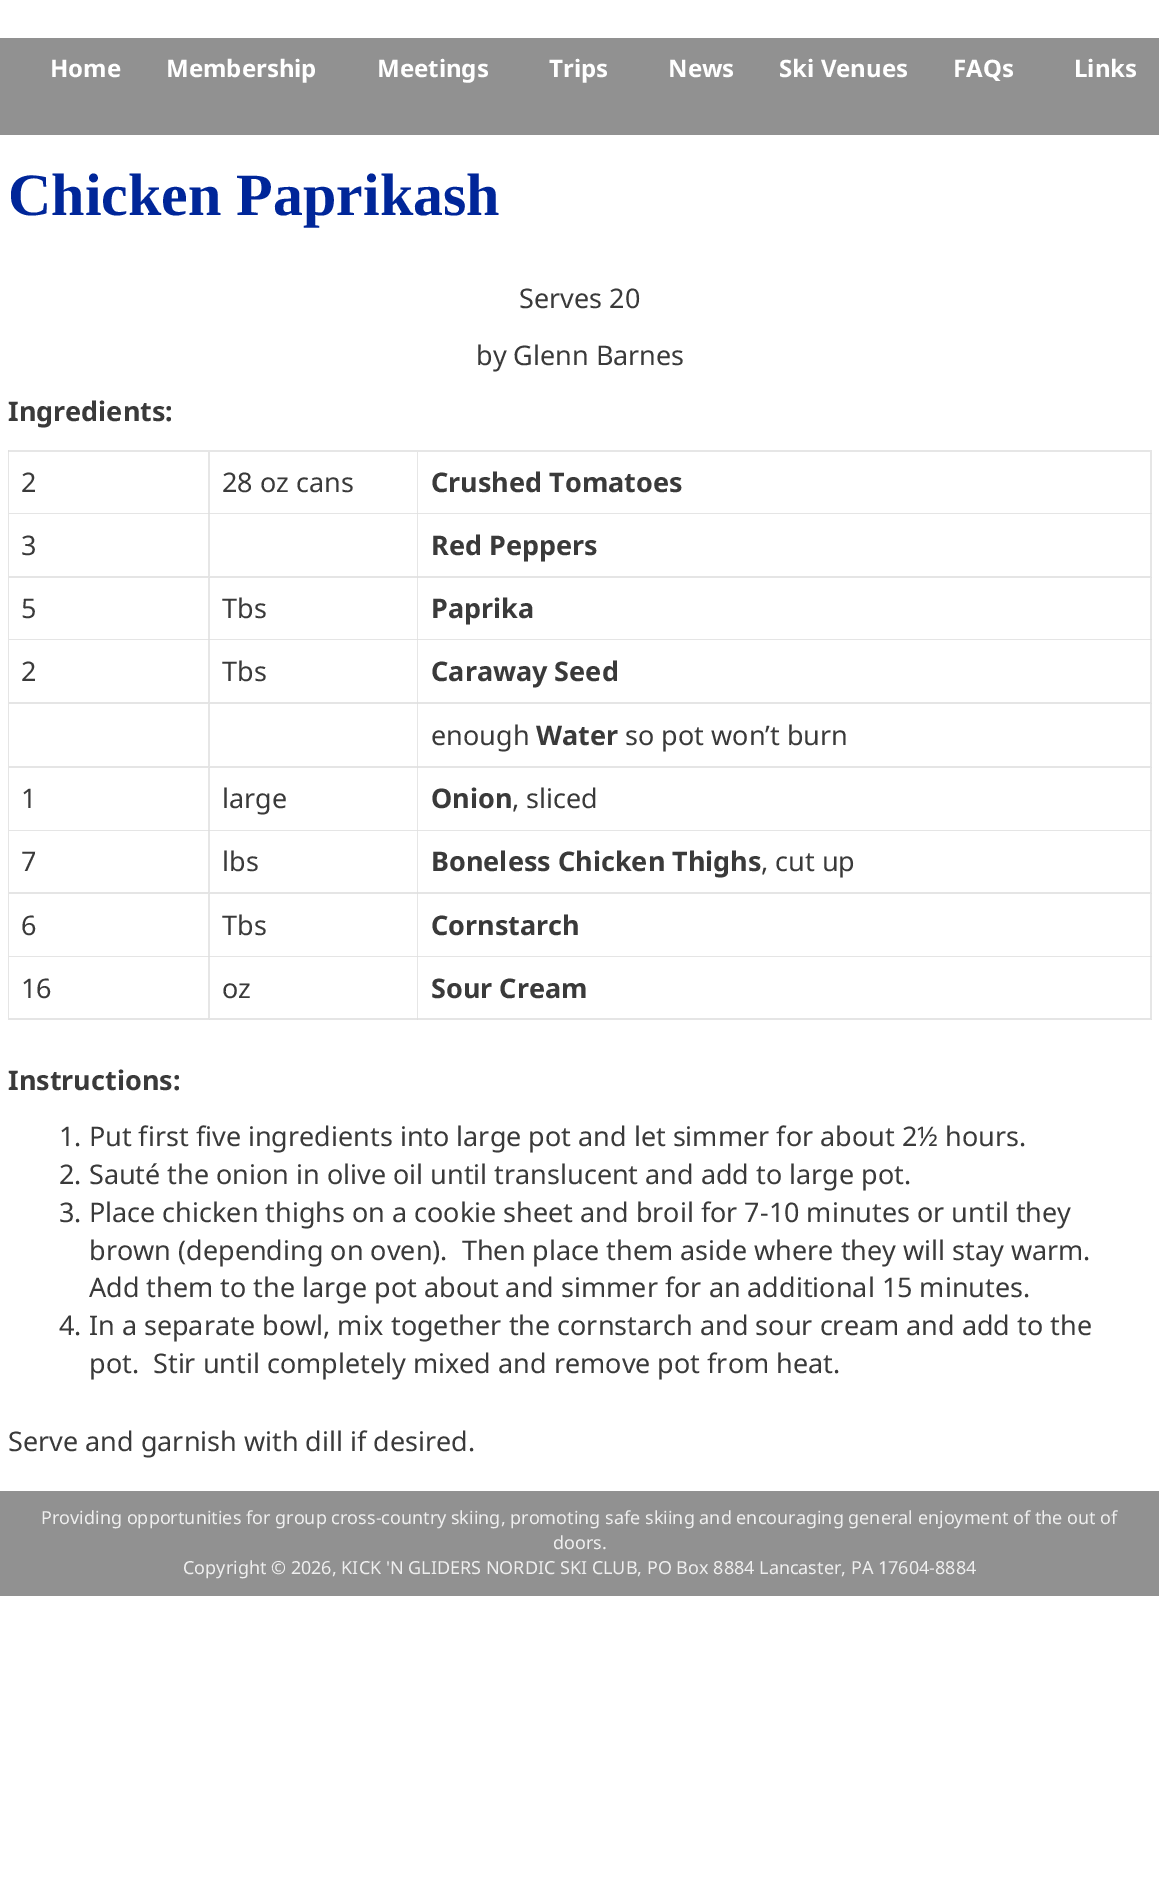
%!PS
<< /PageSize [1159 1889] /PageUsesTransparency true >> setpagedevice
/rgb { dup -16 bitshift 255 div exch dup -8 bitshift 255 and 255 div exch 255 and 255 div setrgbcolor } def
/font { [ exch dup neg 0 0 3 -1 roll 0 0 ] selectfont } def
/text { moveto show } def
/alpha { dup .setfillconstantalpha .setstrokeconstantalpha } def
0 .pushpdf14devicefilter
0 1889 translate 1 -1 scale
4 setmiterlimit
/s1 { /NotoSans-Bold 24 font 16#FFFFFF rgb } def
/s2 { /LiberationSerif-Bold 60 font 16#002699 rgb } def
/s3 { /NotoSans-Regular 27 font 16#3A3A3A rgb } def
/s4 { /NotoSans-Bold 27 font 16#3A3A3A rgb } def
/s5 { /NotoSans-Regular 18 font 16#EFEFEF rgb } def
16#FFFFFF rgb
0 0 1159 1889 rectfill
16#919191 rgb
0 38 1159 97 rectfill
s1
(Home) 50 77 text
(Membership) 166 77 text
(Meetings) 377 77 text
(Trips) 549 77 text
(News) 668 77 text
(Ski Venues) 779 77 text
(FAQs) 953 77 text
(Links) 1074 77 text
s2
(Chicken Paprikash) 8 215 text
s3
(Serves 20) 519 308 text
(by Glenn Barnes) 476 365 text
s4
(Ingredients:) 8 421 text
16#E6E6E6 rgb
8 450 moveto 1152 450 lineto 1152 452 lineto 9 452 lineto closepath fill
0.1 alpha
16#000000 rgb
8 1020 moveto 8 450 lineto 9 452 lineto 9 1020 lineto closepath fill
1 alpha
16#E6E6E6 rgb
210 452 moveto 210 514 lineto 208 513 lineto 208 452 lineto closepath fill
0.1 alpha
16#000000 rgb
210 514 moveto 9 514 lineto 9 513 lineto 208 513 lineto closepath fill
1 alpha
s3
(2) 21 492 text
16#E6E6E6 rgb
418 452 moveto 418 514 lineto 417 513 lineto 417 452 lineto closepath fill
0.1 alpha
16#000000 rgb
418 514 moveto 210 514 lineto 210 513 lineto 417 513 lineto closepath fill
1 alpha
s3
(28 oz cans) 222 492 text
16#E6E6E6 rgb
1152 452 moveto 1152 514 lineto 1150 513 lineto 1150 452 lineto closepath fill
0.1 alpha
16#000000 rgb
1152 514 moveto 418 514 lineto 418 513 lineto 1150 513 lineto closepath fill
1 alpha
s4
(Crushed Tomatoes) 431 492 text
16#E6E6E6 rgb
210 514 moveto 210 578 lineto 208 576 lineto 208 514 lineto closepath fill
0.1 alpha
16#000000 rgb
210 578 moveto 9 578 lineto 9 576 lineto 208 576 lineto closepath fill
1 alpha
s3
(3) 21 555 text
16#E6E6E6 rgb
418 514 moveto 418 578 lineto 417 576 lineto 417 514 lineto closepath fill
0.1 alpha
16#000000 rgb
418 578 moveto 210 578 lineto 210 576 lineto 417 576 lineto closepath fill
1 alpha
16#E6E6E6 rgb
1152 514 moveto 1152 578 lineto 1150 576 lineto 1150 514 lineto closepath fill
0.1 alpha
16#000000 rgb
1152 578 moveto 418 578 lineto 418 576 lineto 1150 576 lineto closepath fill
1 alpha
s4
(Red Peppers) 431 555 text
16#E6E6E6 rgb
210 578 moveto 210 640 lineto 208 639 lineto 208 578 lineto closepath fill
0.1 alpha
16#000000 rgb
210 640 moveto 9 640 lineto 9 639 lineto 208 639 lineto closepath fill
1 alpha
s3
(5) 21 618 text
16#E6E6E6 rgb
418 578 moveto 418 640 lineto 417 639 lineto 417 578 lineto closepath fill
0.1 alpha
16#000000 rgb
418 640 moveto 210 640 lineto 210 639 lineto 417 639 lineto closepath fill
1 alpha
s3
(Tbs) 222 618 text
16#E6E6E6 rgb
1152 578 moveto 1152 640 lineto 1150 639 lineto 1150 578 lineto closepath fill
0.1 alpha
16#000000 rgb
1152 640 moveto 418 640 lineto 418 639 lineto 1150 639 lineto closepath fill
1 alpha
s4
(Paprika) 431 618 text
16#E6E6E6 rgb
210 640 moveto 210 704 lineto 208 702 lineto 208 640 lineto closepath fill
0.1 alpha
16#000000 rgb
210 704 moveto 9 704 lineto 9 702 lineto 208 702 lineto closepath fill
1 alpha
s3
(2) 21 681 text
16#E6E6E6 rgb
418 640 moveto 418 704 lineto 417 702 lineto 417 640 lineto closepath fill
0.1 alpha
16#000000 rgb
418 704 moveto 210 704 lineto 210 702 lineto 417 702 lineto closepath fill
1 alpha
s3
(Tbs) 222 681 text
16#E6E6E6 rgb
1152 640 moveto 1152 704 lineto 1150 702 lineto 1150 640 lineto closepath fill
0.1 alpha
16#000000 rgb
1152 704 moveto 418 704 lineto 418 702 lineto 1150 702 lineto closepath fill
1 alpha
s4
(Caraway Seed) 431 681 text
16#E6E6E6 rgb
210 704 moveto 210 768 lineto 208 766 lineto 208 704 lineto closepath fill
0.1 alpha
16#000000 rgb
210 768 moveto 9 768 lineto 9 766 lineto 208 766 lineto closepath fill
1 alpha
16#E6E6E6 rgb
418 704 moveto 418 768 lineto 417 766 lineto 417 704 lineto closepath fill
0.1 alpha
16#000000 rgb
418 768 moveto 210 768 lineto 210 766 lineto 417 766 lineto closepath fill
1 alpha
16#E6E6E6 rgb
1152 704 moveto 1152 768 lineto 1150 766 lineto 1150 704 lineto closepath fill
0.1 alpha
16#000000 rgb
1152 768 moveto 418 768 lineto 418 766 lineto 1150 766 lineto closepath fill
1 alpha
s3
(enough) 431 745 text
s4
(Water) 536 745 text
s3
(so pot won’t burn) 625 745 text
16#E6E6E6 rgb
210 768 moveto 210 831 lineto 208 830 lineto 208 768 lineto closepath fill
0.1 alpha
16#000000 rgb
210 831 moveto 9 831 lineto 9 830 lineto 208 830 lineto closepath fill
1 alpha
s3
(1) 21 808 text
16#E6E6E6 rgb
418 768 moveto 418 831 lineto 417 830 lineto 417 768 lineto closepath fill
0.1 alpha
16#000000 rgb
418 831 moveto 210 831 lineto 210 830 lineto 417 830 lineto closepath fill
1 alpha
s3
(large) 222 808 text
16#E6E6E6 rgb
1152 768 moveto 1152 831 lineto 1150 830 lineto 1150 768 lineto closepath fill
0.1 alpha
16#000000 rgb
1152 831 moveto 418 831 lineto 418 830 lineto 1150 830 lineto closepath fill
1 alpha
s4
(Onion) 431 808 text
s3
(, sliced) 512 808 text
16#E6E6E6 rgb
210 831 moveto 210 894 lineto 208 892 lineto 208 831 lineto closepath fill
0.1 alpha
16#000000 rgb
210 894 moveto 9 894 lineto 9 892 lineto 208 892 lineto closepath fill
1 alpha
s3
(7) 21 871 text
16#E6E6E6 rgb
418 831 moveto 418 894 lineto 417 892 lineto 417 831 lineto closepath fill
0.1 alpha
16#000000 rgb
418 894 moveto 210 894 lineto 210 892 lineto 417 892 lineto closepath fill
1 alpha
s3
(lbs) 222 871 text
16#E6E6E6 rgb
1152 831 moveto 1152 894 lineto 1150 892 lineto 1150 831 lineto closepath fill
0.1 alpha
16#000000 rgb
1152 894 moveto 418 894 lineto 418 892 lineto 1150 892 lineto closepath fill
1 alpha
s4
(Boneless Chicken Thighs) 431 871 text
s3
(, cut up) 761 871 text
16#E6E6E6 rgb
210 894 moveto 210 957 lineto 208 956 lineto 208 894 lineto closepath fill
0.1 alpha
16#000000 rgb
210 957 moveto 9 957 lineto 9 956 lineto 208 956 lineto closepath fill
1 alpha
s3
(6) 21 935 text
16#E6E6E6 rgb
418 894 moveto 418 957 lineto 417 956 lineto 417 894 lineto closepath fill
0.1 alpha
16#000000 rgb
418 957 moveto 210 957 lineto 210 956 lineto 417 956 lineto closepath fill
1 alpha
s3
(Tbs) 222 935 text
16#E6E6E6 rgb
1152 894 moveto 1152 957 lineto 1150 956 lineto 1150 894 lineto closepath fill
0.1 alpha
16#000000 rgb
1152 957 moveto 418 957 lineto 418 956 lineto 1150 956 lineto closepath fill
1 alpha
s4
(Cornstarch) 431 935 text
16#E6E6E6 rgb
210 957 moveto 210 1020 lineto 208 1018 lineto 208 957 lineto closepath fill
0.1 alpha
16#000000 rgb
210 1020 moveto 9 1020 lineto 9 1018 lineto 208 1018 lineto closepath fill
1 alpha
s3
(16) 21 998 text
16#E6E6E6 rgb
418 957 moveto 418 1020 lineto 417 1018 lineto 417 957 lineto closepath fill
0.1 alpha
16#000000 rgb
418 1020 moveto 210 1020 lineto 210 1018 lineto 417 1018 lineto closepath fill
1 alpha
s3
(oz) 222 998 text
16#E6E6E6 rgb
1152 957 moveto 1152 1020 lineto 1150 1018 lineto 1150 957 lineto closepath fill
0.1 alpha
16#000000 rgb
1152 1020 moveto 418 1020 lineto 418 1018 lineto 1150 1018 lineto closepath fill
1 alpha
s4
(Sour Cream) 431 998 text
(Instructions:) 8 1090 text
s3
(1. Put first five ingredients into large pot and let simmer for about 2½ hours.) 59 1146 text
(2. Sauté the onion in olive oil until translucent and add to large pot.) 59 1184 text
(3. Place chicken thighs on a cookie sheet and broil for 7-10 minutes or until they) 59 1222 text
(brown \(depending on oven\).  Then place them aside where they will stay warm.) 89 1260 text
(Add them to the large pot about and simmer for an additional 15 minutes.) 89 1297 text
(4. In a separate bowl, mix together the cornstarch and sour cream and add to the) 59 1335 text
(pot.  Stir until completely mixed and remove pot from heat.) 89 1373 text
(Serve and garnish with dill if desired.) 8 1451 text
16#919191 rgb
0 1491 1159 105 rectfill
s5
(Providing opportunities for group cross-country skiing, promoting safe skiing and encouraging general enjoyment of the out of) 41 1524 text
(doors.) 553 1549 text
(Copyright © 2026, KICK 'N GLIDERS NORDIC SKI CLUB, PO Box 8884 Lancaster, PA 17604-8884) 183 1574 text
.poppdf14devicefilter showpage
